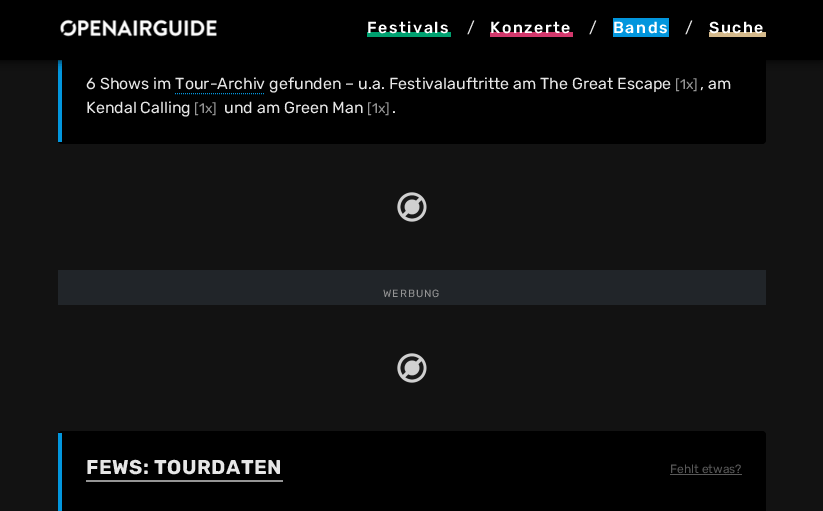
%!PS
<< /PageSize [823 511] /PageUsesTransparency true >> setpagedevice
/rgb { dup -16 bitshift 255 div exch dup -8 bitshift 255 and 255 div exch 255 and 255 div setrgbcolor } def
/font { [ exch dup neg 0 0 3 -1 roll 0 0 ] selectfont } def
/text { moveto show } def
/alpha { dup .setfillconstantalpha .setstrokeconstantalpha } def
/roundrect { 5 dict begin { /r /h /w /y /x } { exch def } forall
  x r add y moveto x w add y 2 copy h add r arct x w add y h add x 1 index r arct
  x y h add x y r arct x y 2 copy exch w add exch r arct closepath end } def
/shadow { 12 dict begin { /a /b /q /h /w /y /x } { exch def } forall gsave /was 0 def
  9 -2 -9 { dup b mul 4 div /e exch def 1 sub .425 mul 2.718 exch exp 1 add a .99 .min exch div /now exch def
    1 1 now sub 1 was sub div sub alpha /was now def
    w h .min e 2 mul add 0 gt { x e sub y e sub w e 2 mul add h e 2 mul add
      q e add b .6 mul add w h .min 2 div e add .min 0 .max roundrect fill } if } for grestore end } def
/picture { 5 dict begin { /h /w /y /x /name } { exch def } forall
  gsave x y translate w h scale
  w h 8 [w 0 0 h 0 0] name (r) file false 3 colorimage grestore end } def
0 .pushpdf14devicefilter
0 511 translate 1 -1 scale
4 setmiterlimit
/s1 { /Rubik-Regular 16 font 16#E6E6E6 rgb } def
/s2 { /Rubik-Regular 14 font 16#959595 rgb } def
/s3 { /Rubik-Regular 12 font 16#595959 rgb } def
16#121212 rgb
0 0 823 511 rectfill
16#000000 rgb
58 12 708 132 4 roundrect fill
16#0296DD rgb
58 60 4 82 rectfill
16#000000 rgb
-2 0 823 60 0 5 1 shadow
0 0 823 60 rectfill
(pic1.raw) 60 19 157 18 picture
16#00A170 rgb
367 32 84 5 rectfill
/Rubik-Medium 16 font
16#FFFFFF rgb
367 33 moveto 1.5 0 (Festivals) ashow
s1
(/) 467 33 text
16#D2386C rgb
490 32 83 5 rectfill
/Rubik-Medium 16 font
16#FFFFFF rgb
490 33 moveto 1.5 0 (Konzerte) ashow
s1
(/) 589 33 text
16#0296DD rgb
613 18 56 19 rectfill
/Rubik-Medium 16 font
16#FFFFFF rgb
613 33 moveto 1.5 0 (Bands) ashow
s1
(/) 685 33 text
16#D4B98B rgb
709 32 57 5 rectfill
/Rubik-Medium 16 font
16#FFFFFF rgb
709 33 moveto 1.5 0 (Suche) ashow
s1
(6 Shows im Tour-Archiv gefunden – u.a. Festivalauftritte am The Great Escape) 86 89 text
s2
([1x]) 675 89 text
s1
(, am) 700 89 text
16#0296DD rgb
[1 1] 0 setdash
175 93.5 moveto 265 93.5 lineto stroke
s1
(Kendal Calling) 86 113 text
s2
([1x]) 194 113 text
s1
(und am Green Man) 224 113 text
s2
([1x]) 367 113 text
s1
(.) 392 113 text
(pic2.raw) 397 192 30 30 picture
16#212529 rgb
58 270 708 35 rectfill
/Rubik-Regular 10.5 font
16#959595 rgb
383 297 moveto 1 0 (WERBUNG) ashow
(pic2.raw) 397 353 30 30 picture
16#000000 rgb
58 431 708 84 4 roundrect fill
16#0296DD rgb
58 433 4 78 rectfill
16#959595 rgb
86 480 197 2 rectfill
/Rubik-Bold 20 font
16#E6E6E6 rgb
86 474 moveto 0.5 0 (FEWS: TOURDATEN) ashow
s3
(Fehlt etwas?) 670 473 text
670 474 72 1 rectfill
.poppdf14devicefilter showpage
